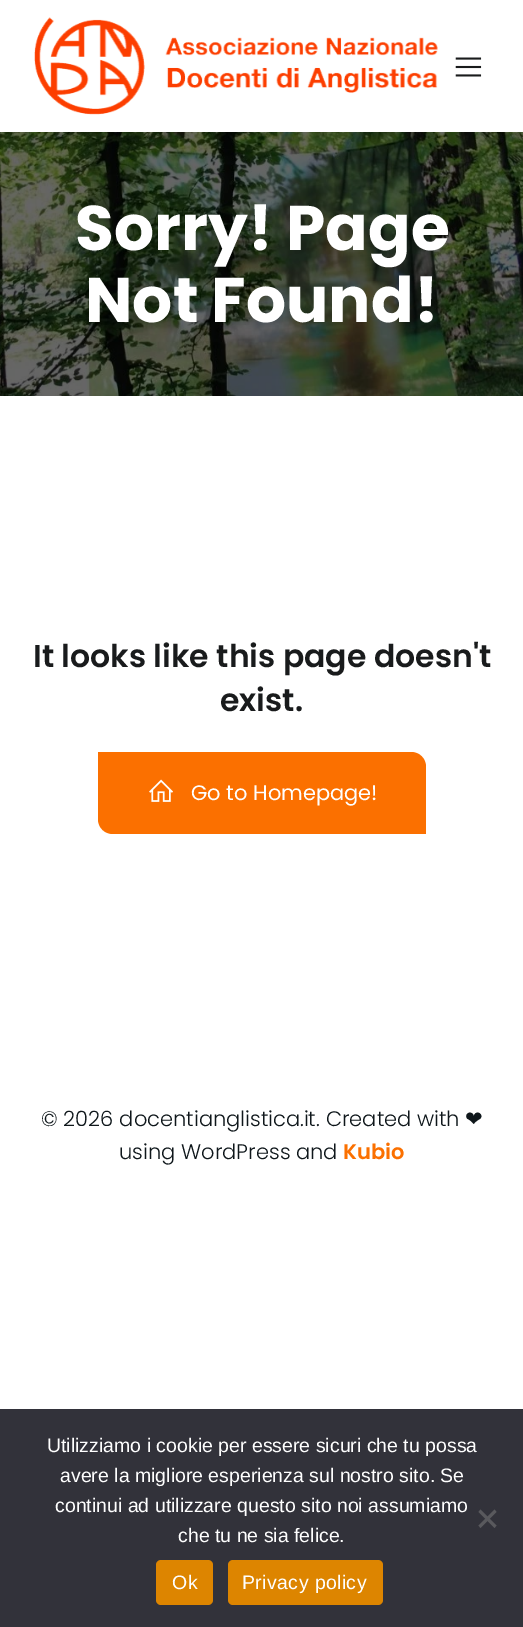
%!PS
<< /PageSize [523 1627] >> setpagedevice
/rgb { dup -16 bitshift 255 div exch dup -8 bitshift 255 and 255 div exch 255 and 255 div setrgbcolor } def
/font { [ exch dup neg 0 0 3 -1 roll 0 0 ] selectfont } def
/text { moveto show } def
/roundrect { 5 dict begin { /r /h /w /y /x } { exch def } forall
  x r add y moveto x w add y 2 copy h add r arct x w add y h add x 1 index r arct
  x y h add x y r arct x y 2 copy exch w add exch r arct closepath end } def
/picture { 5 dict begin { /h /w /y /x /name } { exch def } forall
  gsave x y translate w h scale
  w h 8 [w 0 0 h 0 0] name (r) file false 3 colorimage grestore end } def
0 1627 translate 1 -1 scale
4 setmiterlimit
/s1 { /Poppins-Bold 63 font 16#FFFFFF rgb } def
/s2 { /Poppins-SemiBold 31.5 font 16#191B1C rgb } def
/s3 { /Poppins-Regular 21 font 16#FFFFFF rgb } def
/s4 { /Poppins-Light 21 font 16#0F171B rgb } def
/s5 { /DejaVuSans-Regular 21 font 16#0F171B rgb } def
/s6 { /Poppins-SemiBold 21 font 16#FB7000 rgb } def
/s7 { /LiberationSans-Regular 19.5 font 16#FFFFFF rgb } def
16#FFFFFF rgb
0 0 523 1627 rectfill
(pic1.raw) 34 17 404 98 picture
(pic2.raw) 455 57 27 20 picture
(pic3.raw) 0 132 523 264 picture
s1
(Sorry! Page) 75 250 text
(Not Found!) 85 322 text
s2
(It looks like this page doesn't) 33 667 text
(exist.) 220 711 text
16#FB7000 rgb
98 752 moveto 411 752 lineto 419.5 752 426 758.5 426 767 curveto 426 834 lineto 113 834 lineto 104.5 834 98 827.5 98 819 curveto closepath fill
(pic4.raw) 149 779 24 23 picture
s3
(Go to Homepage!) 191 800 text
s4
(© 2026 docentianglistica.it. Created with) 41 1126 text
s5
(❤) 465 1126 text
s4
(using WordPress and) 119 1159 text
s6
(Kubio) 343 1159 text
16#32323A rgb
0 1409 523 218 rectfill
s7
(Utilizziamo i cookie per essere sicuri che tu possa) 47 1452 text
(avere la migliore esperienza sul nostro sito. Se) 60 1482 text
(continui ad utilizzare questo sito noi assumiamo) 55 1512 text
(che tu ne sia felice.) 178 1542 text
16#59595D rgb
494.5 1509.5 moveto 496.5 1512 lineto 480.5 1528 lineto 478.5 1525.5 lineto closepath fill
478.5 1512 moveto 480.5 1509.5 lineto 496.5 1525.5 lineto 494.5 1528 lineto closepath fill
16#DD8500 rgb
156 1560 57 45 5 roundrect fill
16#FFFFFF rgb
172 1589 moveto 0.4 0 (Ok) ashow
16#DD8500 rgb
228 1560 155 45 5 roundrect fill
16#FFFFFF rgb
242 1589 moveto 0.4 0 (Privacy policy) ashow
showpage
